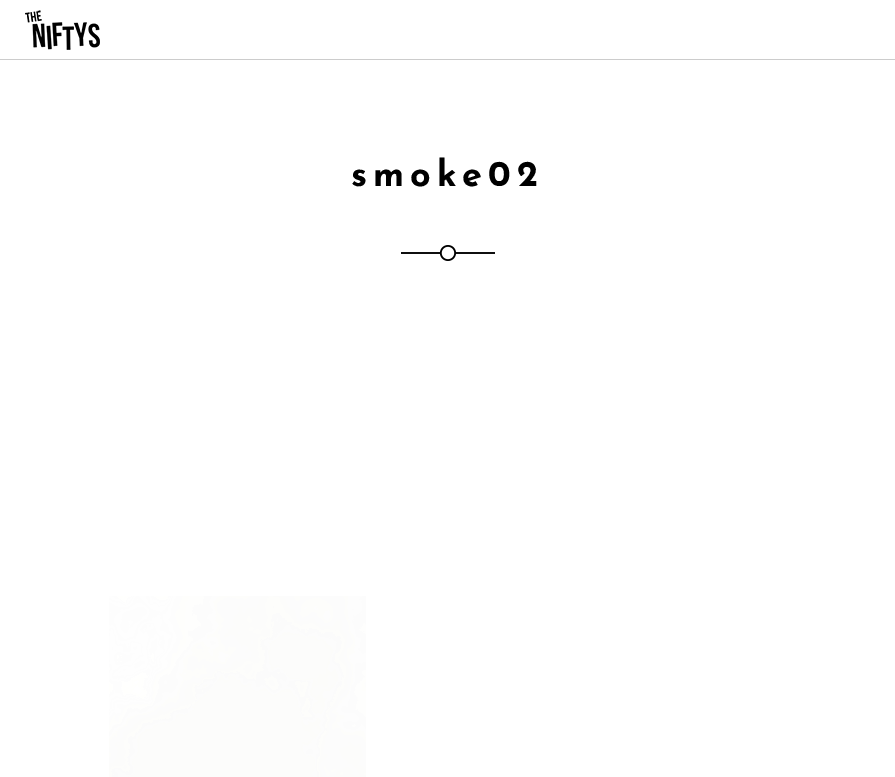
%!PS
<< /PageSize [895 777] >> setpagedevice
/rgb { dup -16 bitshift 255 div exch dup -8 bitshift 255 and 255 div exch 255 and 255 div setrgbcolor } def
/font { [ exch dup neg 0 0 3 -1 roll 0 0 ] selectfont } def
/picture { 5 dict begin { /h /w /y /x /name } { exch def } forall
  gsave x y translate w h scale
  w h 8 [w 0 0 h 0 0] name (r) file false 3 colorimage grestore end } def
0 777 translate 1 -1 scale
4 setmiterlimit
16#FFFFFF rgb
0 0 895 777 rectfill
(pic1.raw) 25 10 75 40 picture
16#CCCCCC rgb
0 59 895 1 rectfill
/JosefinSans-Bold 36 font
16#000000 rgb
351 186 moveto 6 0 (smoke02) ashow
(pic2.raw) 401 245 94 16 picture
(pic3.raw) 109 596 257 181 picture
showpage
